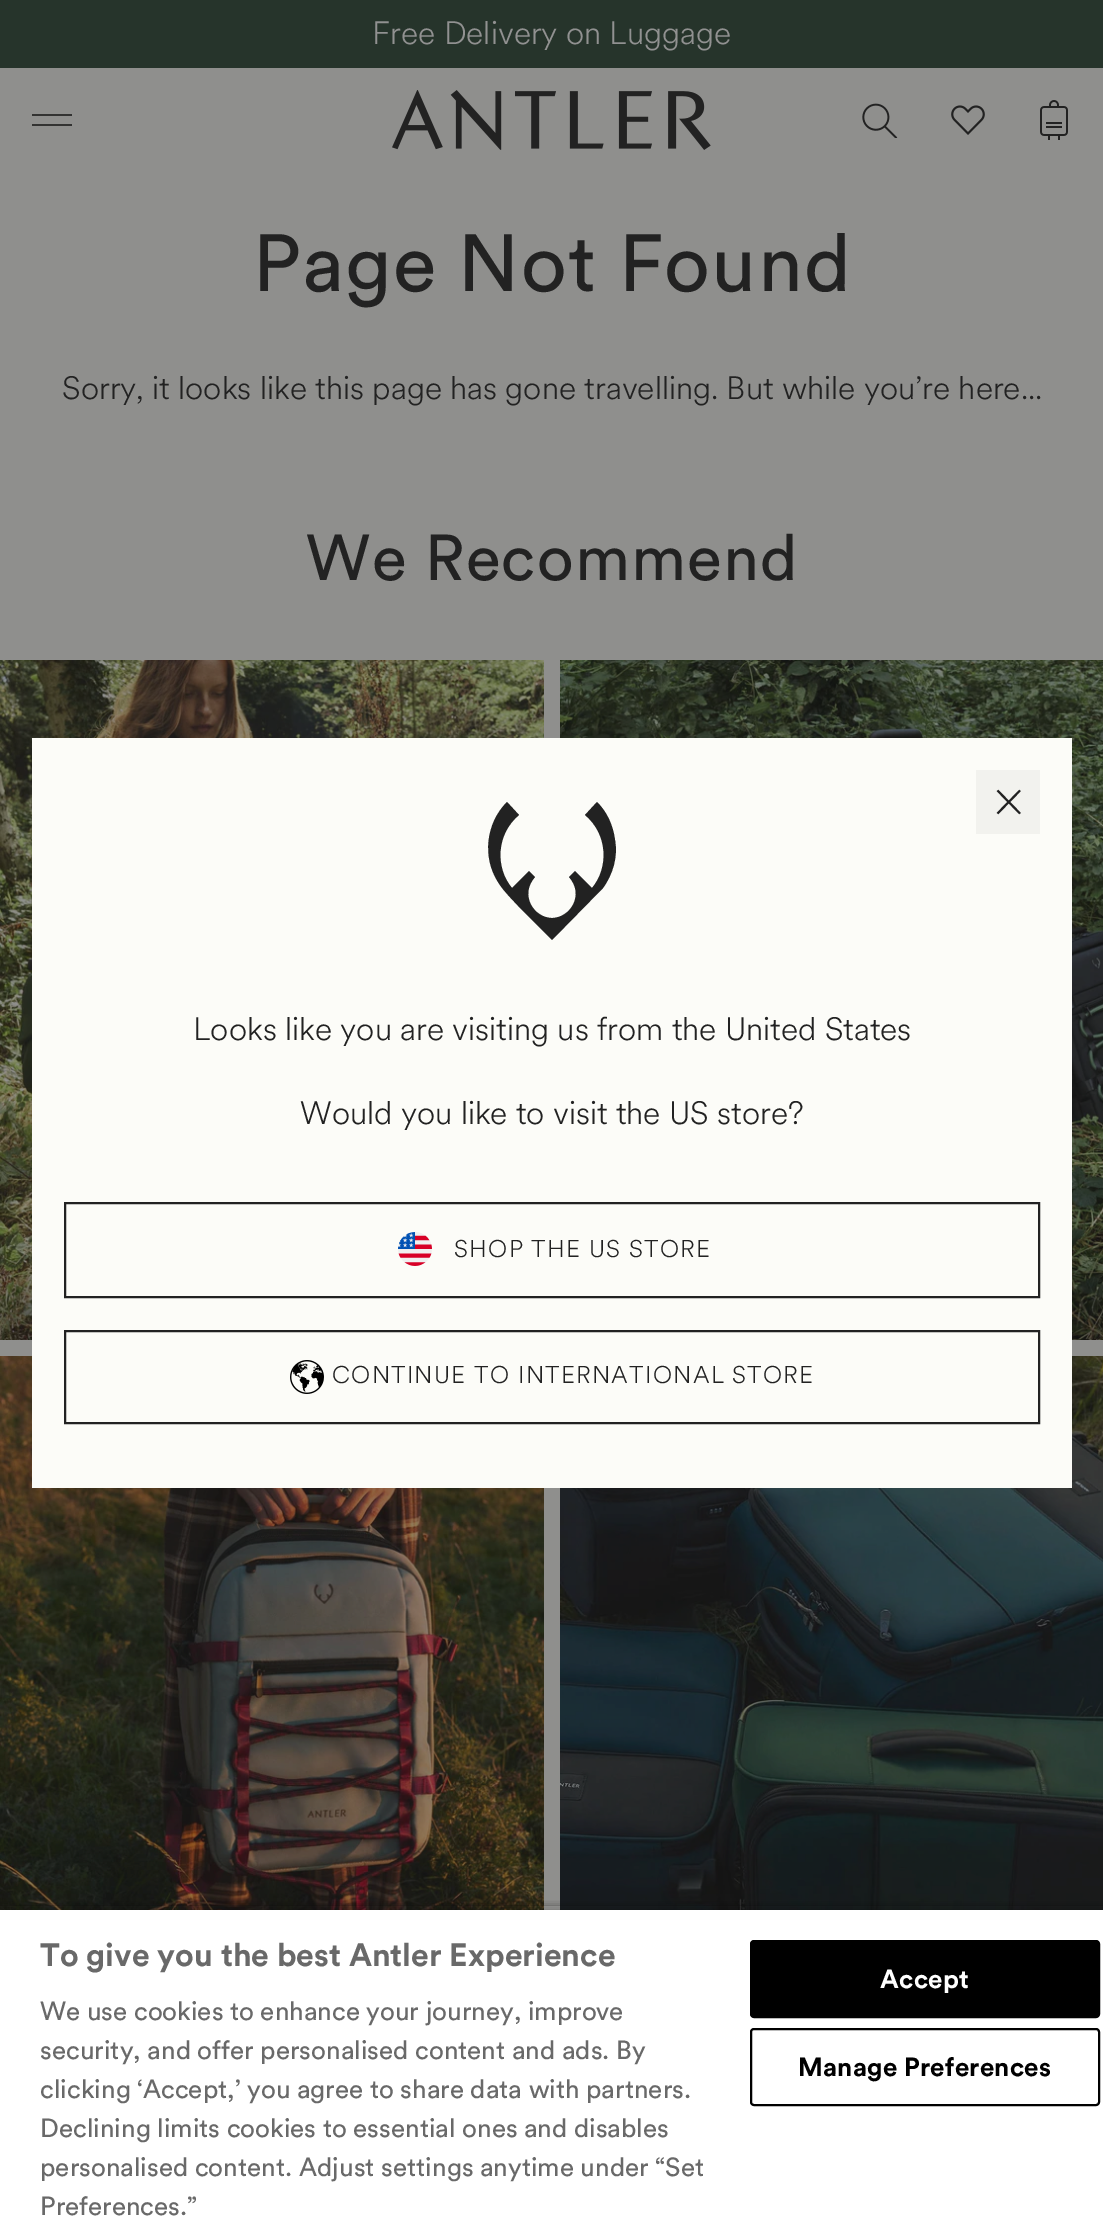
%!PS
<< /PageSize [1103 2225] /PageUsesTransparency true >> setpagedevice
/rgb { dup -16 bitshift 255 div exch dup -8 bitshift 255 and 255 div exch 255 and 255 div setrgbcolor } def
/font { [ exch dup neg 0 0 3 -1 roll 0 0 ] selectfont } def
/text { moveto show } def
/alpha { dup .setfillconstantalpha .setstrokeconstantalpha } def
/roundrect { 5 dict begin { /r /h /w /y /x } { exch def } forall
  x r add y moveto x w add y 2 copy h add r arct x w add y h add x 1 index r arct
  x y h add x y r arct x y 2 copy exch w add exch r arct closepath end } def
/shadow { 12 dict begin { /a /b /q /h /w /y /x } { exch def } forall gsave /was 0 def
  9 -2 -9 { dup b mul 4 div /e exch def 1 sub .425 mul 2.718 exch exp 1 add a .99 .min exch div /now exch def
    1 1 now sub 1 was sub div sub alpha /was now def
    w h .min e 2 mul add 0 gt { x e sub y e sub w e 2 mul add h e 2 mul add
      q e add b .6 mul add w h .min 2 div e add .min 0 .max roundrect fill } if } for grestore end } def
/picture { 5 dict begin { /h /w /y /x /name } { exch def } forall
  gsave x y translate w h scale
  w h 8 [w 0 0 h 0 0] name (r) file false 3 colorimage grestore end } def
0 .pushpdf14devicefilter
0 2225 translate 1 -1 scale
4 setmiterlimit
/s1 { /Circular-Light 32 font 16#919191 rgb } def
/s2 { /Circular-Light 32 font 16#222222 rgb } def
/s3 { /Circular-Bold 32 font 16#696969 rgb } def
/s4 { /Circular-Regular 26 font 16#696969 rgb } def
16#8F8F8D rgb
0 0 1103 2225 rectfill
16#26342B rgb
0 0 1103 68 rectfill
s1
(Free Delivery on Luggage) 372 44 text
16#333332 rgb
32 114 40 2 rectfill
32 124 40 2 rectfill
(pic1.raw) 392 90 319 60 picture
(pic2.raw) 862 103 36 35 picture
(pic3.raw) 951 105 34 30 picture
(pic4.raw) 1040 100 28 40 picture
/Circular-Regular 80 font
16#222222 rgb
253 291 moveto 1.25 0 (Page Not Found) ashow
s2
(Sorry, it looks like this page has gone travelling. But while you’re here...) 62 399 text
/Circular-Regular 64 font
306 580 moveto 1.25 0 (We Recommend) ashow
(pic5.raw) 0 660 544 680 picture
(pic6.raw) 560 660 543 680 picture
(pic7.raw) 0 1356 544 554 picture
(pic8.raw) 560 1356 543 554 picture
16#FCFCF8 rgb
32 738 1040 750 rectfill
16#222222 rgb
615 840 moveto 613 825 607 812 597 802 curveto 585 815 lineto 608 834 609 868 592 888 curveto 575 871 lineto 569 877 lineto 585 895 570 918 552 918 curveto 534 918 519 895 535 877 curveto 529 871 lineto 512 888 lineto 495 868 496 834 519 815 curveto 507 802 lineto 486 823 482 857 498 882 curveto 504 892 513 900 520 908 curveto 552 940 lineto 603 888 lineto 613 874 618 857 615 840 curveto closepath fill
16#F2F2EE rgb
976 770 64 64 rectfill
16#222222 rgb
2 setlinewidth
997.5 790.5 moveto 1020 813.5 lineto 997.5 813.5 moveto 1020 790.5 lineto stroke
s2
(Looks like you are visiting us from the United States) 193 1040 text
(Would you like to visit the US store?) 300 1124 text
(pic9.raw) 398 1232 34 34 picture
65 1203 974 94 rectstroke
/Circular-Light 24 font
454 1257 moveto 1.25 0 (SHOP THE) ashow
589 1257 moveto 1.25 0 (US) ashow
629 1257 moveto 1.25 0 (STORE) ashow
(pic10.raw) 290 1360 34 34 picture
65 1331 974 92 rectstroke
332 1383 moveto 1.25 0 (CONTINUE TO) ashow
518 1383 moveto 1.25 0 (INTERNATIONAL) ashow
732 1383 moveto 1.25 0 (STORE) ashow
gsave
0 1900 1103 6 rectclip
16#000000 rgb
0 1906 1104 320 0 4 0.35 shadow
grestore
16#000000 rgb
0 1910 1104 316 0 4 0.2 shadow
16#FFFFFF rgb
0 1910 1103 315 rectfill
s3
(To give you the best Antler Experience) 40 1966 text
s4
(We use cookies to enhance your journey, improve) 40 2020 text
(security, and offer personalised content and ads. By) 40 2059 text
(clicking ‘Accept,’ you agree to share data with partners.) 40 2098 text
(Declining limits cookies to essential ones and disables) 40 2137 text
(personalised content. Adjust settings anytime under “Set) 40 2176 text
(Preferences.”) 40 2215 text
16#000000 rgb
751 1941 348 76 3 roundrect gsave fill grestore
stroke
/Circular-Bold 26 font
16#FFFFFF rgb
880 1988 moveto 0.25 0 (Accept) ashow
16#000000 rgb
751 2029 348 76 3 roundrect stroke
798 2076 moveto 0.25 0 (Manage Preferences) ashow
.poppdf14devicefilter showpage
